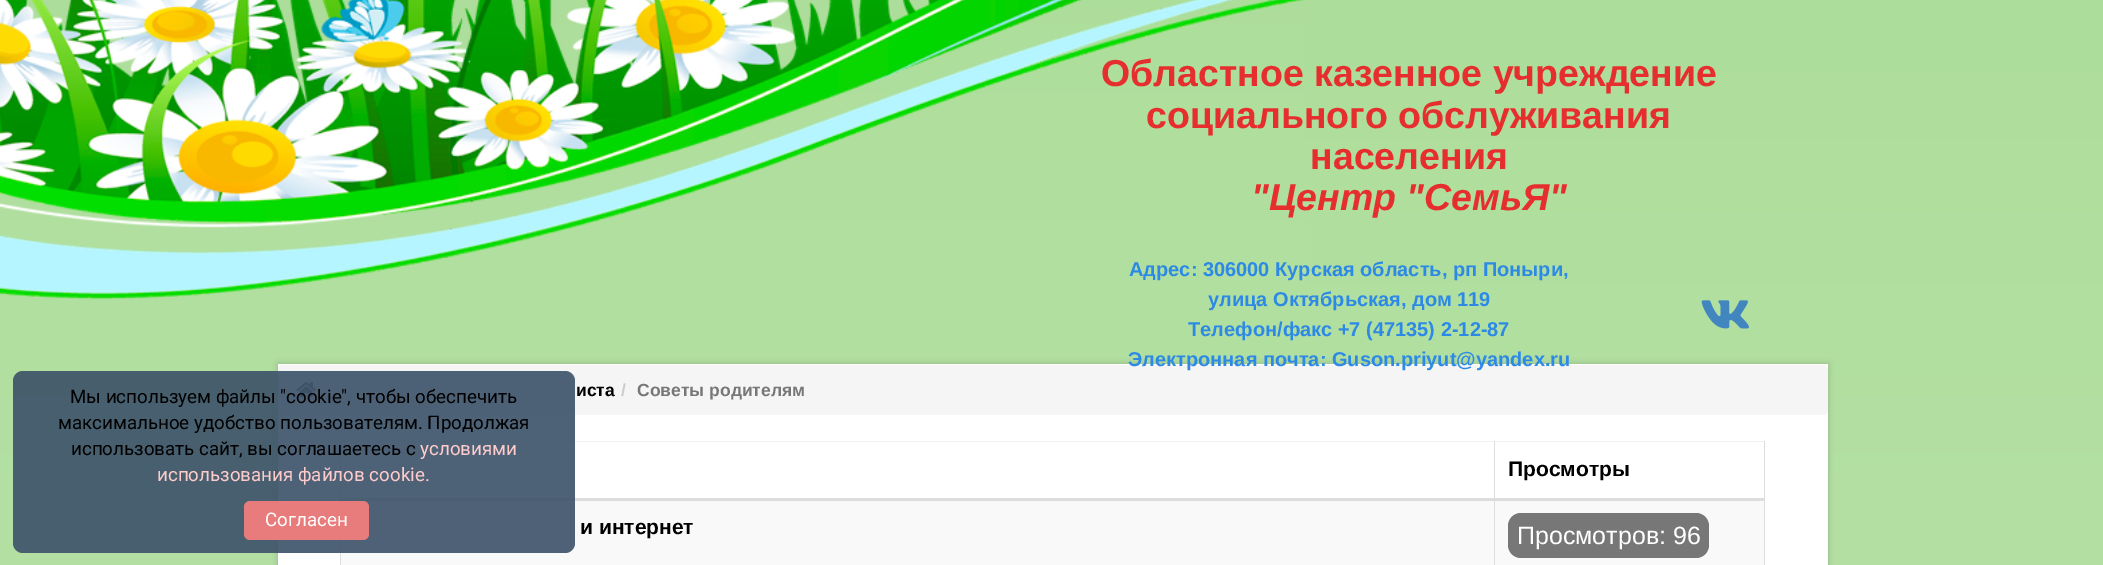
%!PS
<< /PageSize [2103 565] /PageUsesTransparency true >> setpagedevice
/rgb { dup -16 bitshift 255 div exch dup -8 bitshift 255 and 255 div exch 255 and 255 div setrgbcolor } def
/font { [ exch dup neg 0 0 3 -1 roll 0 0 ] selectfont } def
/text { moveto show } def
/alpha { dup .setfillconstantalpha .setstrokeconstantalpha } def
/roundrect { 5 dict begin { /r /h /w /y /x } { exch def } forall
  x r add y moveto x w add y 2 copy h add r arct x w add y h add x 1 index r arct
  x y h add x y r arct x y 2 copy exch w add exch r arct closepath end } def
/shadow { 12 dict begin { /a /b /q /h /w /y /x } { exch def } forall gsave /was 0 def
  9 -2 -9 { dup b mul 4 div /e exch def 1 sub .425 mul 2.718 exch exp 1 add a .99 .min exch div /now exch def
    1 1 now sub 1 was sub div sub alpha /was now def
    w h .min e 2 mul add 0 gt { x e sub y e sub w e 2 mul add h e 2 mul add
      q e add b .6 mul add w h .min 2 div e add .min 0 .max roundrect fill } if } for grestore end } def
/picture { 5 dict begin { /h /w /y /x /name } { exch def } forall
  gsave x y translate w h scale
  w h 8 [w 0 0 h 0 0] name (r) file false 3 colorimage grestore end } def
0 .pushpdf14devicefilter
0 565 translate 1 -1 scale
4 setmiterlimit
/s1 { /LiberationSans-Bold 37.5 font 16#E62E2E rgb } def
/s2 { /LiberationSans-BoldItalic 37.5 font 16#E62E2E rgb } def
/s3 { /LiberationSans-Bold 20 font 16#2D89E6 rgb } def
/s4 { /Roboto-Regular 18.75 font 16#000000 rgb } def
/s5 { /Roboto-Regular 18.75 font 16#FFCBCB rgb } def
/s6 { /Roboto-Regular 18.75 font 16#FFFFFF rgb } def
/s7 { /LiberationSans-Bold 17.5 font 16#000000 rgb } def
/s8 { /LiberationSans-Bold 17.5 font 16#CCCCCC rgb } def
/s9 { /LiberationSans-Bold 17.5 font 16#777777 rgb } def
/s10 { /LiberationSans-Bold 21 font 16#000000 rgb } def
/s11 { /LiberationSans-Regular 25 font 16#FFFFFF rgb } def
16#FFFFFF rgb
0 0 2103 565 rectfill
gsave 0 0 moveto 2103 0 lineto 2103 565 lineto 0 565 lineto closepath clip newpath
<< /ShadingType 2 /ColorSpace /DeviceRGB /Coords [1052 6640 1052 -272] /Extend [true true] /Function << /FunctionType 2 /Domain [0 1] /C0 [1 1 1] /C1 [0.667 0.863 0.592] /N 1 >> >> shfill grestore
(pic1.raw) 0 0 1305 300 picture
s1
(Областное казенное учреждение) 1101 86 text
(социального обслуживания) 1146 128 text
(населения) 1310 169 text
s2
("Центр "СемьЯ") 1251 210 text
s3
(Адрес: 306000 Курская область, рп Поныри,) 1129 276 text
(улица Октябрьская, дом 119) 1208 306 text
(Телефон/факс +7 \(47135\) 2-12-87) 1188 336 text
16#000000 rgb
278 364 1550 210 0 3 0.2 shadow
16#FFFFFF rgb
278 364 1550 201 rectfill
16#F5F5F5 rgb
278 365 1550 50 5 roundrect fill
s3
(Электронная почта: Guson.priyut@yandex.ru) 1128 366 text
(pic2.raw) 1701 300 48 29 picture
(pic3.raw) 296 382 20 16 picture
16#F2F2F2 rgb
340 441 1425 1 rectfill
16#DDDDDD rgb
340 441 1 58 rectfill
1764 441 1 124 rectfill
16#F9F9F9 rgb
341 501 1423 64 rectfill
16#DDDDDD rgb
1494 441 1 124 rectfill
339 498 1426 3 rectfill
340 540 1 25 rectfill
0.9 alpha
16#3B5168 rgb
13 371 562 182 10 roundrect fill
1 alpha
s4
(Мы используем файлы "cookie", чтобы обеспечить) 70 403 text
(максимальное удобство пользователям. Продолжая) 58 429 text
(использовать сайт, вы соглашаетесь с) 71 455 text
s5
(условиями) 420 455 text
(использования файлов cookie.) 157 481 text
16#E87B7B rgb
244 501 125 39 6 roundrect fill
s6
(Согласен) 265 526 text
s7
(иста) 576 396 text
s8
(/) 621 396 text
s9
(Советы родителям) 637 396 text
s10
(Просмотры) 1508 476 text
(и интернет) 580 534 text
16#777777 rgb
1508 513 201 45 13 roundrect fill
s11
(Просмотров: 96) 1517 544 text
.poppdf14devicefilter showpage
